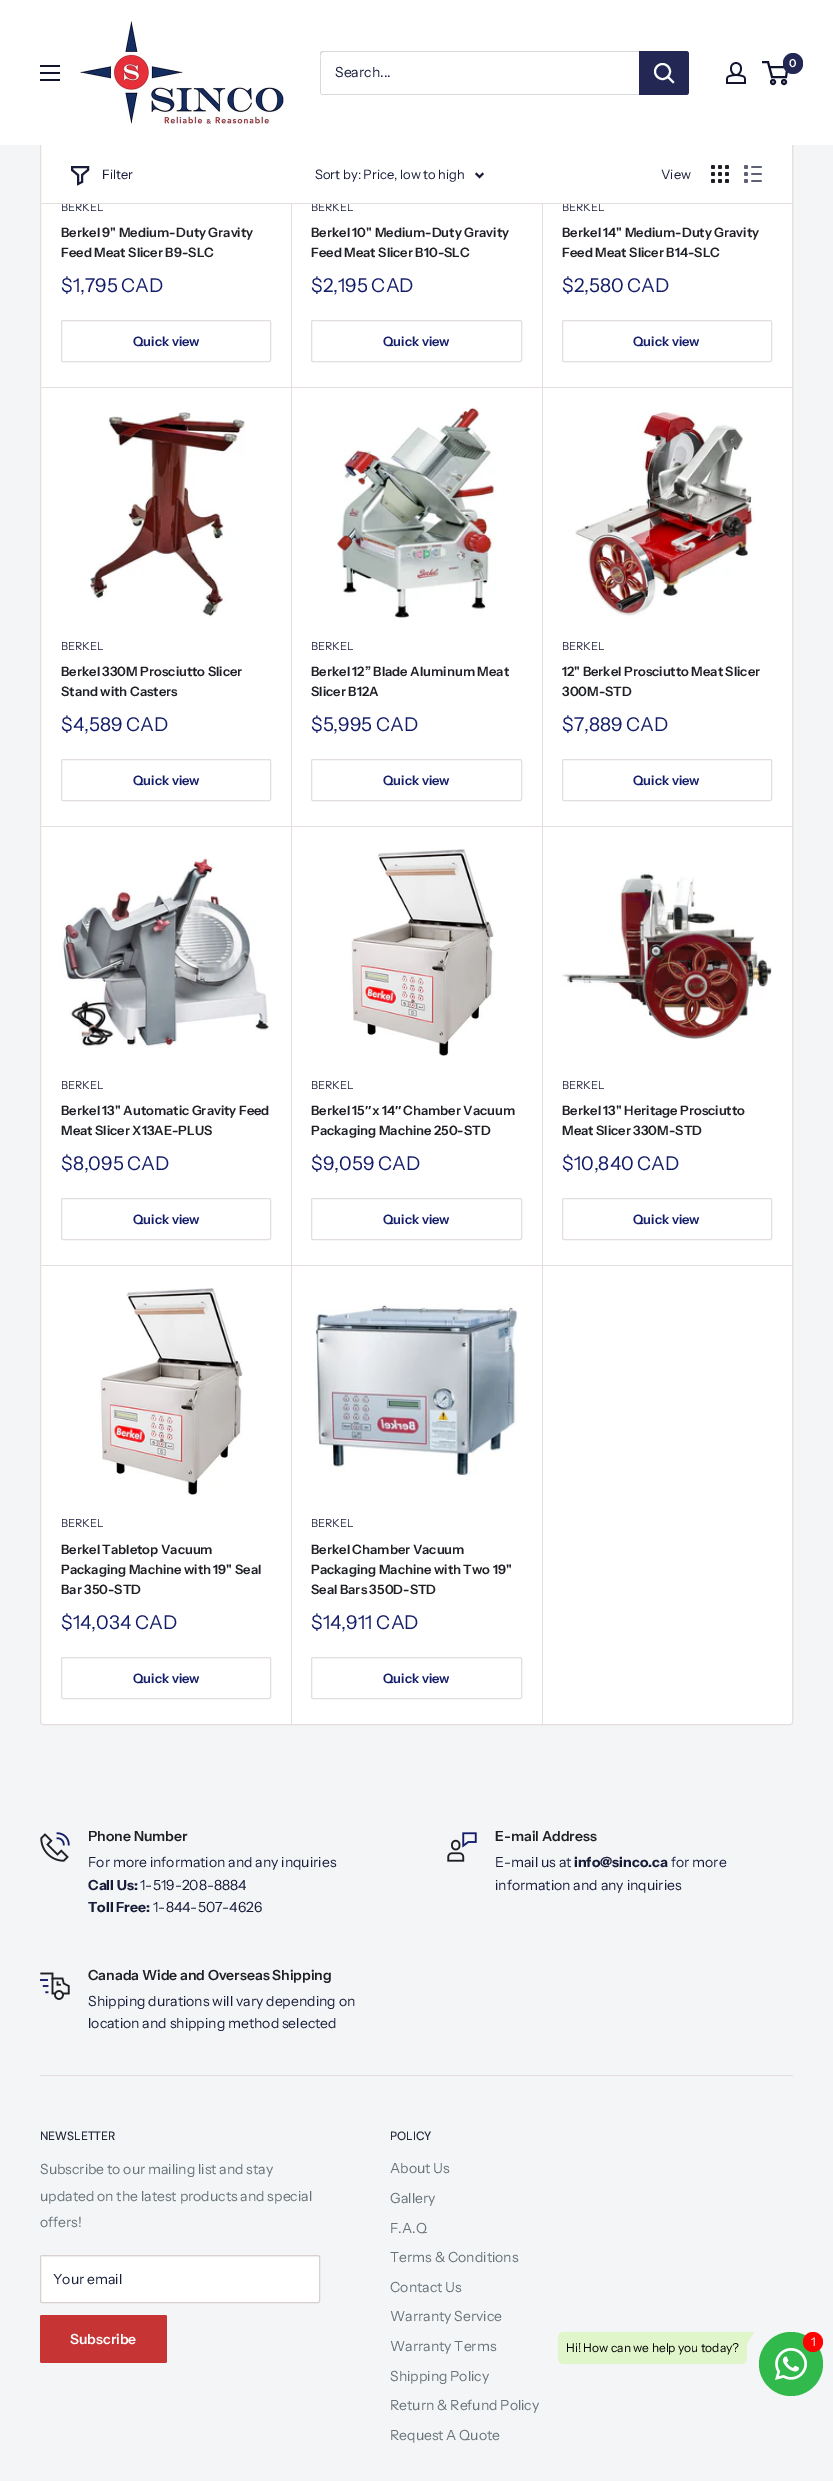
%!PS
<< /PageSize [833 2481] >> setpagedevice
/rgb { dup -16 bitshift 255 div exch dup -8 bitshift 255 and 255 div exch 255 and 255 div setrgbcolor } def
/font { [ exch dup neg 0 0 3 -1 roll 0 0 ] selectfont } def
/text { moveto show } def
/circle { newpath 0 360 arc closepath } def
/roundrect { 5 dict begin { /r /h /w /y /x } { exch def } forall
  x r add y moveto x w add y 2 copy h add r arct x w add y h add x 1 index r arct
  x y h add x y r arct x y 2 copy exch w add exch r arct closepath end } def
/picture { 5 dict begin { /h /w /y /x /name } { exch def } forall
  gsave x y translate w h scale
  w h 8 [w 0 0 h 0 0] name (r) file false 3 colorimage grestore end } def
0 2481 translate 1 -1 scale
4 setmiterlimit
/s1 { /InstrumentSans-SemiBold 11 font 16#FFFFFF rgb } def
/s2 { /InstrumentSans-Regular 14 font 16#181C39 rgb } def
/s3 { /InstrumentSans-Regular 11 font 16#181C39 rgb } def
/s4 { /InstrumentSans-Regular 13 font 16#181C39 rgb } def
/s5 { /InstrumentSans-SemiBold 13 font 16#1E2026 rgb } def
/s6 { /InstrumentSans-Regular 19 font 16#141D69 rgb } def
/s7 { /InstrumentSans-SemiBold 13 font 16#141D69 rgb } def
/s8 { /LiberationSans-Bold 13 font 16#1E2026 rgb } def
/s9 { /InstrumentSans-SemiBold 14 font 16#1E2026 rgb } def
/s10 { /InstrumentSans-Bold 14 font 16#181C39 rgb } def
/s11 { /DMSans-Medium 12 font 16#232938 rgb } def
/s12 { /InstrumentSans-Regular 14 font 16#677279 rgb } def
/s13 { /InstrumentSans-SemiBold 14 font 16#FFFFFF rgb } def
/s14 { /InstrumentSans-Regular 12 font 16#FFFFFF rgb } def
/s15 { /InstrumentSans-Regular 12 font 16#000000 rgb } def
16#F3F5F6 rgb
0 0 833 2481 rectfill
16#FFFFFF rgb
40.5 -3.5 752 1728 2.5 roundrect gsave fill grestore
16#E4DEDE rgb
stroke
16#FFFFFF rgb
0 0 833 145 rectfill
(pic1.raw) 80 21 204 103 picture
(pic2.raw) 726 62 20 22 picture
16#10152D rgb
2 setlinewidth
773 82 2 circle stroke
784 82 2 circle stroke
769.5 67 moveto 787.5 67 lineto 786 77 lineto 772 77 lineto 768 62 lineto 762 62 lineto stroke
16#222853 rgb
783 53 20 21 10 roundrect fill
s1
(0) 789 67 text
(pic3.raw) 40 65 20 16 picture
16#D8D9DC rgb
321 94 moveto 321 95 322 95 323 95 curveto 686 95 lineto 688 95 689 94 689 92 curveto 689 54 lineto 689 53 689 52 688 52 curveto 688 85 lineto 688 87 690 94 685 94 curveto closepath fill
324 52 moveto 688 52 lineto 688 51 687 51 686 51 curveto 323 51 lineto 321 51 320 52 320 54 curveto 320 92 lineto 320 93 320 94 321 94 curveto 321 61 lineto 321 59 319 52 324 52 curveto closepath fill
s2
(Search...) 335 77 text
16#222853 rgb
639 51 moveto 686 51 lineto 687.5 51 689 52.5 689 54 curveto 689 92 lineto 689 93.5 687.5 95 686 95 curveto 639 95 lineto closepath fill
16#FFFFFF rgb
2 setlinecap
673 82 moveto 668 77 lineto stroke
0 setlinecap
662.5 71.5 7.5 circle stroke
s3
(BERKEL) 61 211 text
(BERKEL) 311 211 text
(BERKEL) 562 211 text
16#E4DEDE rgb
41 203 751 1 rectfill
16#181C39 rgb
2 setlinecap
88 170 moveto 82 175 lineto 82 182 lineto 78 184 lineto 78 175 lineto 72 170 lineto 72 167 lineto 88 167 lineto closepath stroke
s4
(Filter) 102 179 text
(Sort by: Price, low to high) 315 179 text
1.9 setlinewidth
482.5 174 moveto 479.5 177 lineto 476.5 174 lineto stroke
(View) 661 179 text
(pic4.raw) 711 165 18 18 picture
(pic5.raw) 744 165 18 18 picture
s5
(Berkel 9" Medium-Duty Gravity) 61 237 text
(Feed Meat Slicer B9-SLC) 61 257 text
s6
($1,795 CAD) 61 292 text
16#E4DEDE rgb
1 setlinewidth
0 setlinecap
61.5 320.5 209 41 1.5 roundrect stroke
s7
(Quick view) 133 346 text
16#E4DEDE rgb
41 387 751 1 rectfill
291 204 1 622 rectfill
s5
(Berkel 10" Medium-Duty Gravity) 311 237 text
(Feed Meat Slicer B10-SLC) 311 257 text
s6
($2,195 CAD) 311 292 text
16#E4DEDE rgb
311.5 320.5 210 41 1.5 roundrect stroke
s7
(Quick view) 383 346 text
16#E4DEDE rgb
542 204 1 622 rectfill
s5
(Berkel 14" Medium-Duty Gravity) 562 237 text
(Feed Meat Slicer B14-SLC) 562 257 text
s6
($2,580 CAD) 562 292 text
16#E4DEDE rgb
562.5 320.5 209 41 1.5 roundrect stroke
s7
(Quick view) 633 346 text
(pic6.raw) 90 412 155 206 picture
s3
(BERKEL) 61 650 text
s5
(Berkel 330M Prosciutto Slicer) 61 676 text
(Stand with Casters) 61 696 text
s6
($4,589 CAD) 61 731 text
16#E4DEDE rgb
61.5 759.5 209 41 1.5 roundrect stroke
s7
(Quick view) 133 785 text
16#E4DEDE rgb
41 826 751 1 rectfill
(pic7.raw) 337 407 160 211 picture
s3
(BERKEL) 311 650 text
s5
(Berkel 12” Blade Aluminum Meat) 311 676 text
(Slicer B12A) 311 696 text
s6
($5,995 CAD) 311 731 text
16#E4DEDE rgb
311.5 759.5 210 41 1.5 roundrect stroke
s7
(Quick view) 383 785 text
(pic8.raw) 575 410 180 208 picture
s3
(BERKEL) 562 650 text
s5
(12" Berkel Prosciutto Meat Slicer) 562 676 text
(300M-STD) 562 696 text
s6
($7,889 CAD) 562 731 text
16#E4DEDE rgb
562.5 759.5 209 41 1.5 roundrect stroke
s7
(Quick view) 633 785 text
16#E4DEDE rgb
41 1265 751 1 rectfill
291 826 1 898 rectfill
(pic9.raw) 61 858 210 190 picture
s3
(BERKEL) 61 1089 text
s5
(Berkel 13" Automatic Gravity Feed) 61 1115 text
(Meat Slicer X13AE-PLUS) 61 1135 text
s6
($8,095 CAD) 61 1170 text
16#E4DEDE rgb
61.5 1198.5 209 41 1.5 roundrect stroke
s7
(Quick view) 133 1224 text
(pic10.raw) 350 849 144 208 picture
16#E4DEDE rgb
542 826 1 898 rectfill
s3
(BERKEL) 311 1089 text
s5
(Berkel 15) 311 1115 text
s8
(″) 365 1115 text
s5
(x 14) 372 1115 text
s8
(″) 395 1115 text
s5
(Chamber Vacuum) 403 1115 text
(Packaging Machine 250-STD) 311 1135 text
s6
($9,059 CAD) 311 1170 text
16#E4DEDE rgb
311.5 1198.5 210 41 1.5 roundrect stroke
s7
(Quick view) 383 1224 text
(pic11.raw) 562 871 210 169 picture
s3
(BERKEL) 562 1089 text
s5
(Berkel 13" Heritage Prosciutto) 562 1115 text
(Meat Slicer 330M-STD) 562 1135 text
s6
($10,840 CAD) 562 1170 text
16#E4DEDE rgb
562.5 1198.5 209 41 1.5 roundrect stroke
s7
(Quick view) 633 1224 text
(pic10.raw) 99 1288 144 208 picture
s3
(BERKEL) 61 1527 text
s5
(Berkel Tabletop Vacuum) 61 1554 text
(Packaging Machine with 19" Seal) 61 1574 text
(Bar 350-STD) 61 1594 text
s6
($14,034 CAD) 61 1629 text
16#E4DEDE rgb
61.5 1657.5 209 41 1.5 roundrect stroke
s7
(Quick view) 133 1683 text
(pic12.raw) 315 1303 203 174 picture
s3
(BERKEL) 311 1527 text
s5
(Berkel Chamber Vacuum) 311 1554 text
(Packaging Machine with Two 19") 311 1574 text
(Seal Bars 350D-STD) 311 1594 text
s6
($14,911 CAD) 311 1629 text
16#E4DEDE rgb
311.5 1657.5 210 41 1.5 roundrect stroke
s7
(Quick view) 383 1683 text
(pic13.raw) 40 1832 30 30 picture
s9
(Phone Number) 88 1841 text
s2
(For more information and any inquiries) 88 1867 text
s10
(Call Us:) 88 1890 text
s2
(1-519-208-8884) 140 1890 text
s10
(Toll Free:) 88 1912 text
s2
(1-844-507-4626) 153 1912 text
(pic14.raw) 447 1832 30 30 picture
s9
(E-mail Address) 495 1841 text
s2
(E-mail us at) 495 1867 text
s10
(info@sinco.ca) 574 1867 text
s2
(for more) 671 1867 text
(information and any inquiries) 495 1890 text
(pic15.raw) 40 1972 30 28 picture
s9
(Canada Wide and Overseas Shipping) 88 1980 text
s2
(Shipping durations will vary depending on) 88 2006 text
(location and shipping method selected) 88 2028 text
16#E4DEDE rgb
40 2075 753 1 rectfill
s11
(NEWSLETTER) 40 2140 text
s12
(Subscribe to our mailing list and stay) 40 2174 text
(updated on the latest products and special) 40 2201 text
(offers!) 40 2227 text
16#FFFFFF rgb
40 2255 280 48 2 roundrect fill
16#F8F7F7 rgb
42 2257 moveto 318 2257 lineto 319 2257 319 2257 319 2258 curveto 319 2257 319 2256 318 2256 curveto 42 2256 lineto 41 2256 lineto 41 2258 lineto 41 2257 41 2257 42 2257 curveto closepath fill
16#D9D0D0 rgb
40.5 2255.5 279 47 1.5 roundrect stroke
s2
(Your email) 53 2284 text
16#C63434 rgb
40 2315 127 48 2 roundrect fill
s13
(Subscribe) 70 2344 text
s11
(POLICY) 390 2140 text
s12
(About Us) 390 2173 text
(Gallery) 390 2203 text
(F.A.Q) 390 2233 text
(Terms & Conditions) 390 2262 text
(Contact Us) 390 2292 text
(Warranty Service) 390 2321 text
(Warranty Terms) 390 2351 text
(Shipping Policy) 390 2381 text
(Return & Refund Policy) 390 2410 text
(Request A Quote) 390 2440 text
16#31B94C rgb
791 2364 32 circle fill
(pic16.raw) 775 2348 32 32 picture
16#FF0303 rgb
813 2342 10 circle fill
s14
(1) 811 2346 text
16#E0F6CA rgb
564 2332 moveto 747 2332 lineto 747 2358 lineto 747 2361.5 744.5 2364 741 2364 curveto 564 2364 lineto 560.5 2364 558 2361.5 558 2358 curveto 558 2338 lineto 558 2334.5 560.5 2332 564 2332 curveto closepath fill
747 2332 moveto 754 2332 lineto 747 2344 lineto closepath fill
s15
(Hi! How can we help you today?) 566 2352 text
showpage
